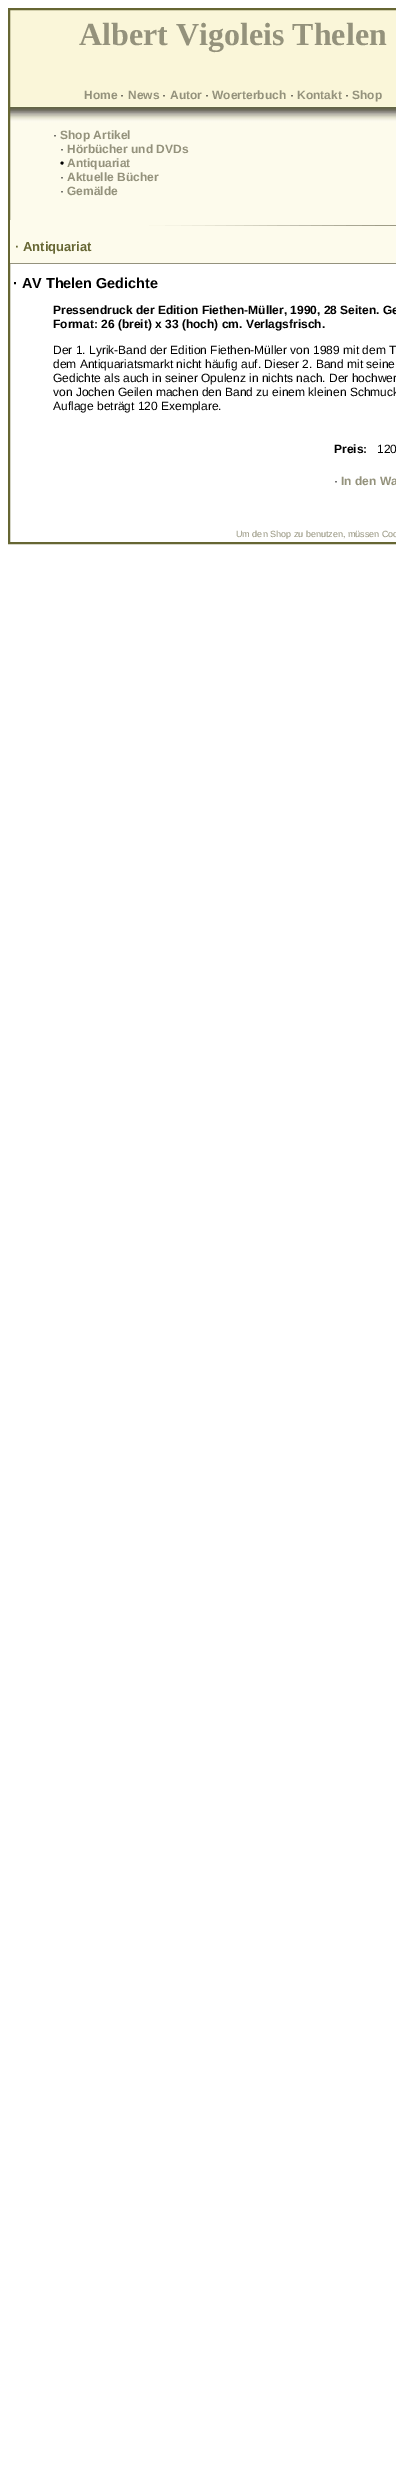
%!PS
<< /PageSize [396 2480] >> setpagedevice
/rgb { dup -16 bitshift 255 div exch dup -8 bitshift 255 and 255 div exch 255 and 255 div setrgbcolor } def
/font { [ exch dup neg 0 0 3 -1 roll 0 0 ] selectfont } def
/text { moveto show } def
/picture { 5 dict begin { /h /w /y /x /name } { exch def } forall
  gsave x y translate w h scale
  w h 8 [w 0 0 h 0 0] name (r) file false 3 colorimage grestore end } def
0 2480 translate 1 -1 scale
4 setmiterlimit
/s1 { /LiberationSerif-Bold 32 font 16#94927C rgb } def
/s2 { /LiberationSans-Bold 12 font 16#94927C rgb } def
/s3 { /LiberationSans-Regular 12 font 16#000000 rgb } def
/s4 { /LiberationSans-Bold 13 font 16#666633 rgb } def
/s5 { /LiberationSans-Bold 14.4 font 16#000000 rgb } def
/s6 { /LiberationSans-Bold 12 font 16#000000 rgb } def
/s7 { /LiberationSans-Regular 9 font 16#94927C rgb } def
16#FFFFFF rgb
0 0 396 2480 rectfill
(pic1.raw) 10 10 386 210 picture
16#666633 rgb
2 setlinewidth
9 9 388 534 rectstroke
s1
(Albert Vigoleis Thelen) 79 45 text
s2
(Home) 84 99 text
s3
(·) 120 99 text
s2
(News) 128 99 text
s3
(·) 162 99 text
s2
(Autor) 170 99 text
s3
(·) 205 99 text
s2
(Woerterbuch) 212 99 text
s3
(·) 290 99 text
s2
(Kontakt) 297 99 text
s3
(·) 345 99 text
s2
(Shop) 352 99 text
s3
(·) 53 139 text
s2
(Shop Artikel) 60 139 text
s3
(·) 60 153 text
s2
(Hörbücher und DVDs) 67 153 text
s3
(•) 60 167 text
s2
(Antiquariat) 67 167 text
s3
(·) 60 181 text
s2
(Aktuelle Bücher) 67 181 text
s3
(·) 60 195 text
s2
(Gemälde) 67 195 text
(pic2.raw) 10 220 386 44 picture
s4
(· Antiquariat) 15 251 text
s5
(· AV Thelen Gedichte) 13 288 text
s6
(Pressendruck der Edition Fiethen-Müller, 1990, 28 Seiten. Ge) 53 314 text
(Format: 26 \(breit\) x 33 \(hoch\) cm. Verlagsfrisch.) 53 328 text
s3
(Der 1. Lyrik-Band der Edition Fiethen-Müller von 1989 mit dem T) 53 354 text
(dem Antiquariatsmarkt nicht häufig auf. Dieser 2. Band mit seine) 53 368 text
(Gedichte als auch in seiner Opulenz in nichts nach. Der hochwer) 53 382 text
(von Jochen Geilen machen den Band zu einem kleinen Schmuck) 53 396 text
(Auflage beträgt 120 Exemplare.) 53 410 text
s6
(Preis:) 334 453 text
s3
(120) 377 453 text
(·) 334 485 text
s2
(In den Wa) 341 485 text
s7
(Um den Shop zu benutzen, müssen Coo) 236 537 text
showpage
